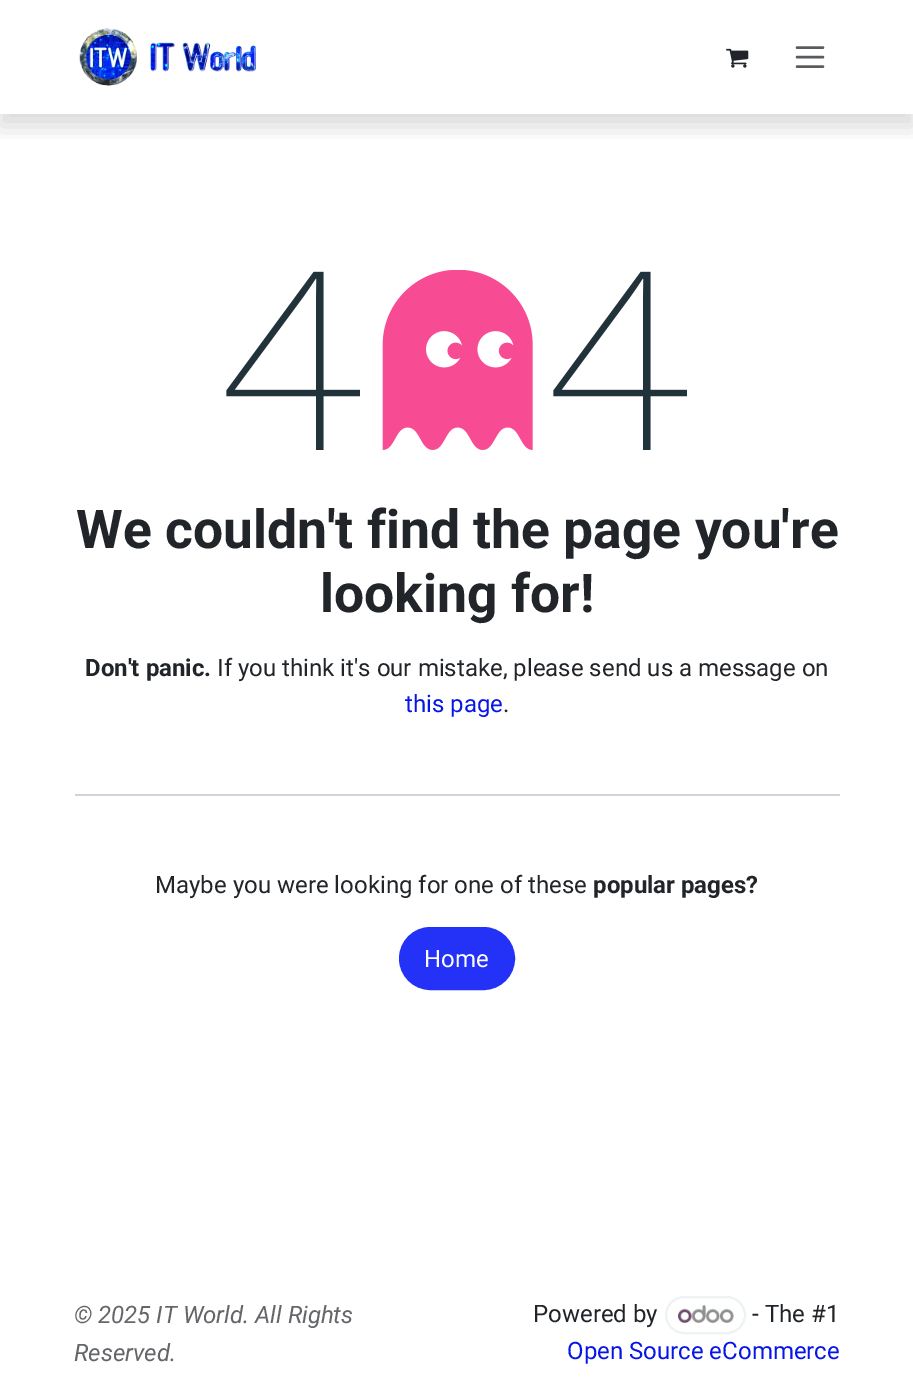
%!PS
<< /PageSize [913 1394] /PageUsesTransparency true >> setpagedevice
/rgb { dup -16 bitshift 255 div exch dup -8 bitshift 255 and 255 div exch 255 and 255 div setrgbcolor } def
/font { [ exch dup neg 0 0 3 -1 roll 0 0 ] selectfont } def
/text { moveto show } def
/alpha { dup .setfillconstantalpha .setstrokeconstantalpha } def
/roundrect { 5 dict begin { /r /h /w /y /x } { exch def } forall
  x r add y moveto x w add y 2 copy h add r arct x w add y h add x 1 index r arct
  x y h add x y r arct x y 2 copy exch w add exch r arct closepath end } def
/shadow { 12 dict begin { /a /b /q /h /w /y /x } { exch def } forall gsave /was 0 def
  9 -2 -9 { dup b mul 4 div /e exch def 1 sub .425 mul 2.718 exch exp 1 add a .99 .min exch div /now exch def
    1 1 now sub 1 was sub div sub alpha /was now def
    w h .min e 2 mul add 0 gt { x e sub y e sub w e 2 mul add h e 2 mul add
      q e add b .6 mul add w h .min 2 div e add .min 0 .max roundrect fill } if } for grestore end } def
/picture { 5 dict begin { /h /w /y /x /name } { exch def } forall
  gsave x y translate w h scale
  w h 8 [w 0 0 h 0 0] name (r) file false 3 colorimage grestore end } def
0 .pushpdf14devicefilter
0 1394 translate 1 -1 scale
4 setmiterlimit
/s1 { /Roboto-Bold 53.4 font 16#212529 rgb } def
/s2 { /Roboto-Bold 24 font 16#212529 rgb } def
/s3 { /Roboto-Regular 24 font 16#212529 rgb } def
/s4 { /Roboto-Regular 24 font 16#0716E7 rgb } def
/s5 { /Roboto-Regular 24 font 16#FFFFFF rgb } def
/s6 { /Roboto-Italic 24 font 16#646669 rgb } def
16#FFFFFF rgb
0 0 913 1394 rectfill
gsave
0 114 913 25 rectclip
16#000000 rgb
0 12 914 114 0 12 0.15 shadow
grestore
(pic1.raw) 79 28 177 58 picture
(pic2.raw) 726 48 23 20 picture
16#595C5F rgb
2.4 setlinewidth
1 setlinecap
797 47.5 moveto 823 47.5 lineto 797 57 moveto 823 57 lineto 797 66.5 moveto 823 66.5 lineto stroke
(pic3.raw) 226 270 461 180 picture
s1
(We couldn't find the page you're) 76 548 text
(looking for!) 320 612 text
s2
(Don't panic.) 85 676 text
s3
(If you think it's our mistake, please send us a message on) 217 676 text
s4
(this page) 405 712 text
s3
(.) 503 712 text
16#CED4DA rgb
75 794 765 2 rectfill
s3
(Maybe you were looking for one of these) 155 893 text
s2
(popular pages?) 593 893 text
16#2432F8 rgb
400 928 114 61 30.5 roundrect gsave fill grestore
2 setlinewidth
0 setlinecap
stroke
s5
(Home) 424 967 text
s6
(© 2025 IT World. All Rights) 74 1323 text
(Reserved.) 74 1361 text
s3
(Powered by) 533 1322 text
16#EDF2F4 rgb
666 1297 79 36 18 roundrect stroke
(pic4.raw) 678 1305 56 18 picture
s3
(- The #1) 752 1322 text
s4
(Open Source eCommerce) 567 1359 text
.poppdf14devicefilter showpage
